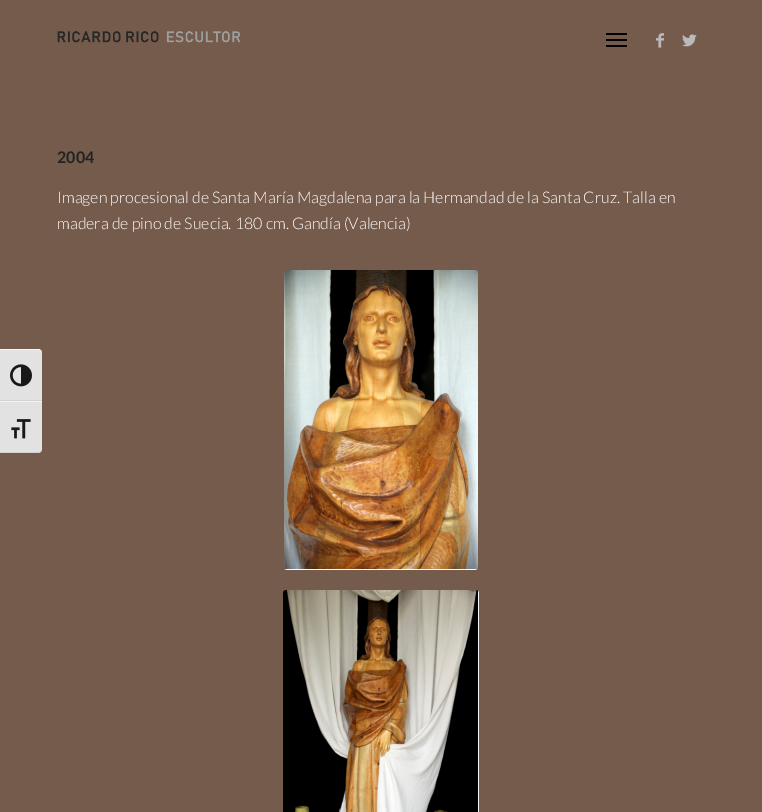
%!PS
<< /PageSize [762 812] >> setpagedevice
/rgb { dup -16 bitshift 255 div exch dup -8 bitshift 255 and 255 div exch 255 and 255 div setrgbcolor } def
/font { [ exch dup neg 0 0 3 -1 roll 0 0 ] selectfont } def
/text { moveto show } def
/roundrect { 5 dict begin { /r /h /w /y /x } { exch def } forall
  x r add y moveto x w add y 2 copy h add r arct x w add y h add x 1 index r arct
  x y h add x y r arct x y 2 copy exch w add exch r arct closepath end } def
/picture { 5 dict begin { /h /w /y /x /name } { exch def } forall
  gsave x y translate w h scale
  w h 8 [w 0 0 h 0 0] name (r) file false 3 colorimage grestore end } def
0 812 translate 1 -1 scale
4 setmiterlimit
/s1 { /Lato-Bold 16 font 16#222222 rgb } def
/s2 { /Lato-Light 16 font 16#FFFFFF rgb } def
16#755B4C rgb
0 0 762 812 rectfill
(pic1.raw) 57 31 183 12 picture
16#000000 rgb
606 39 21 2 1 roundrect fill
606 33 21 2 1 roundrect fill
606 45 21 2 1 roundrect fill
(pic2.raw) 656 33 8 15 picture
(pic3.raw) 682 34 15 13 picture
s1
(2004) 57 163 text
s2
(Imagen procesional de Santa María Magdalena para la Hermandad de la Santa Cruz. Talla en) 57 203 text
(madera de pino de Suecia. 180 cm. Gandía \(Valencia\)) 57 229 text
(pic4.raw) 284 270 194 300 picture
(pic5.raw) 283 590 196 222 picture
16#E2E2E2 rgb
0 349 moveto 38 349 lineto 40 349 42 351 42 353 curveto 42 401 lineto 0 401 lineto closepath fill
16#F5F5F5 rgb
0 349 moveto 0 350 lineto 38 350 lineto 40 350 42 351 42 353 curveto 42 351 40 349 38 349 curveto closepath fill
16#D2D2D2 rgb
0 400 42 1 rectfill
(pic6.raw) 10 364 22 23 picture
16#E2E2E2 rgb
0 401 moveto 42 401 lineto 42 449 lineto 42 451 40 453 38 453 curveto 0 453 lineto closepath fill
16#F5F5F5 rgb
0 401 42 1 rectfill
16#D2D2D2 rgb
0 452 moveto 0 453 lineto 38 453 lineto 40 453 42 451 42 449 curveto 42 451 40 452 38 452 curveto closepath fill
(pic7.raw) 11 419 20 20 picture
showpage
